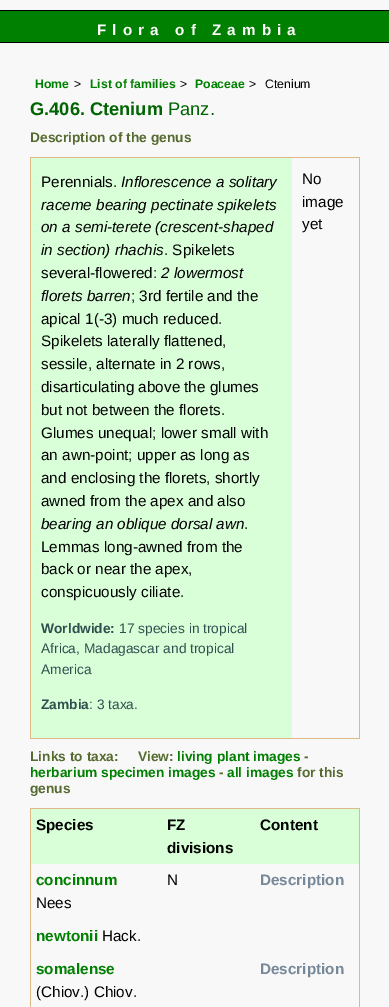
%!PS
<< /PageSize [389 1007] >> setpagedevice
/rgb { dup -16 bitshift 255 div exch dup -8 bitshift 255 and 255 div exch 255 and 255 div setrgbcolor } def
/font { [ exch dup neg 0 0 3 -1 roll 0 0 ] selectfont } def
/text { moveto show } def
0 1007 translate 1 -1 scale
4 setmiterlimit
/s1 { /LiberationSans-Bold 12.25 font 16#008000 rgb } def
/s2 { /LiberationSans-Regular 12.25 font 16#000000 rgb } def
/s3 { /LiberationSans-Bold 18.25 font 16#006400 rgb } def
/s4 { /LiberationSans-Regular 18.25 font 16#006400 rgb } def
/s5 { /LiberationSans-Bold 13.75 font 16#556B2F rgb } def
/s6 { /LiberationSans-Regular 15.25 font 16#000000 rgb } def
/s7 { /LiberationSans-Italic 15.25 font 16#000000 rgb } def
/s8 { /LiberationSans-Bold 13.75 font 16#2F4F4F rgb } def
/s9 { /LiberationSans-Regular 13.75 font 16#2F4F4F rgb } def
/s10 { /LiberationSans-Bold 13.75 font 16#008000 rgb } def
/s11 { /LiberationSans-Bold 15.25 font 16#000000 rgb } def
/s12 { /LiberationSans-Bold 15.25 font 16#008000 rgb } def
/s13 { /LiberationSans-Bold 15.25 font 16#778899 rgb } def
16#F8F8F8 rgb
0 0 389 1007 rectfill
16#008000 rgb
0 11 389 31 rectfill
16#000000 rgb
0 10 389 1 rectfill
0 42 389 1 rectfill
/LiberationSans-Bold 15.25 font
16#FFFFFF rgb
97 35 moveto 6.1 0 (Flora of Zambia) ashow
s1
(Home) 35 88 text
s2
(>) 74 88 text
s1
(List of families) 90 88 text
s2
(>) 180 88 text
s1
(Poaceae) 195 88 text
s2
(>) 249 88 text
(Ctenium) 265 88 text
s3
(G.406. Ctenium) 30 115 text
s4
(Panz.) 168 115 text
s5
(Description of the genus) 30 142 text
16#DEB887 rgb
30 157 330 1 rectfill
359 157 1 582 rectfill
30 738 330 1 rectfill
30 157 1 582 rectfill
16#D8FFD8 rgb
31 158 261 580 rectfill
s6
(Perennials.) 41 187 text
s7
(Inflorescence a solitary) 121 187 text
(raceme bearing pectinate spikelets) 41 210 text
(on a semi-terete \(crescent-shaped) 41 232 text
(in section\) rhachis) 41 255 text
s6
(. Spikelets) 164 255 text
(several-flowered:) 41 278 text
s7
(2 lowermost) 161 278 text
(florets barren) 41 301 text
s6
(; 3rd fertile and the) 131 301 text
(apical 1\(-3\) much reduced.) 41 324 text
(Spikelets laterally flattened,) 41 346 text
(sessile, alternate in 2 rows,) 41 369 text
(disarticulating above the glumes) 41 392 text
(but not between the florets.) 41 415 text
(Glumes unequal; lower small with) 41 438 text
(an awn-point; upper as long as) 41 460 text
(and enclosing the florets, shortly) 41 483 text
(awned from the apex and also) 41 506 text
s7
(bearing an oblique dorsal awn) 41 529 text
s6
(.) 244 529 text
(Lemmas long-awned from the) 41 552 text
(back or near the apex,) 41 574 text
(conspicuously ciliate.) 41 597 text
s8
(Worldwide:) 41 633 text
s9
(17 species in tropical) 119 633 text
(Africa, Madagascar and tropical) 41 653 text
(America) 41 674 text
s8
(Zambia) 41 709 text
s9
(: 3 taxa.) 89 709 text
s6
(No) 302 184 text
(image) 302 207 text
(yet) 302 229 text
s5
(Links to taxa:     View:) 30 761 text
s10
(living plant images) 177 761 text
s5
(-) 304 761 text
s10
(herbarium specimen images) 30 777 text
s5
(-) 219 777 text
s10
(all images) 227 777 text
s5
(for this) 297 777 text
(genus) 30 793 text
16#DEB887 rgb
30 808 330 1 rectfill
359 808 1 199 rectfill
30 808 1 199 rectfill
16#D8FFD8 rgb
31 809 328 55 rectfill
s11
(Species) 36 830 text
(FZ) 167 830 text
(divisions) 167 853 text
(Content) 260 830 text
s12
(concinnum) 36 885 text
s6
(Nees) 36 908 text
(N) 167 885 text
s13
(Description) 260 885 text
s12
(newtonii) 36 941 text
s6
(Hack.) 102 941 text
s12
(somalense) 36 974 text
s6
(\(Chiov.\) Chiov.) 36 997 text
s13
(Description) 260 974 text
showpage
